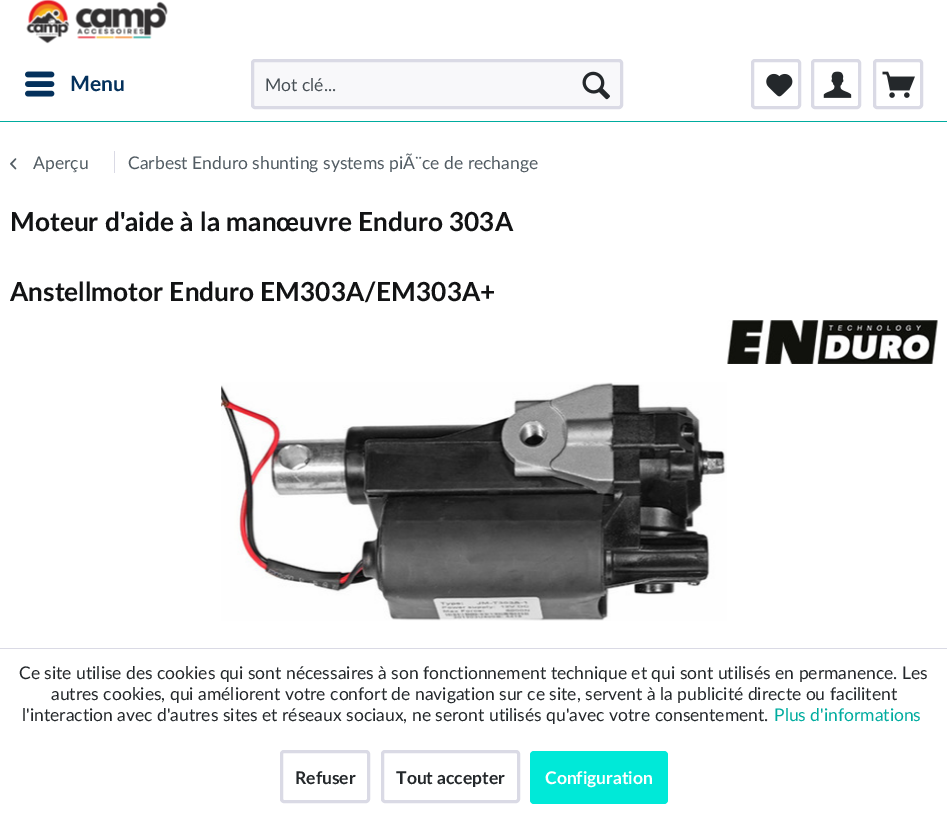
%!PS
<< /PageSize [947 816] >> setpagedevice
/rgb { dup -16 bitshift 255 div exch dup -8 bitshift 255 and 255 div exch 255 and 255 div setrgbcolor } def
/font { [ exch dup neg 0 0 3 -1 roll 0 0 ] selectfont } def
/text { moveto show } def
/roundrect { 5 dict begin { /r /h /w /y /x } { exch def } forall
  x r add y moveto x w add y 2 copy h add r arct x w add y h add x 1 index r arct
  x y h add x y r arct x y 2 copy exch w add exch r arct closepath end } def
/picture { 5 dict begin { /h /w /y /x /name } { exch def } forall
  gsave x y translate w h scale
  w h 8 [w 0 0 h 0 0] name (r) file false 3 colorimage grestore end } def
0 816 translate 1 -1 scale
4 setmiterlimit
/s1 { /Lato-Bold 21 font 16#04315C rgb } def
/s2 { /Lato-Regular 17.5 font 16#474F55 rgb } def
/s3 { /Lato-Regular 17.5 font 16#525C63 rgb } def
/s4 { /Lato-Bold 26.25 font 16#121314 rgb } def
/s5 { /Lato-Regular 17.5 font 16#24282B rgb } def
/s6 { /Lato-Regular 17.5 font 16#00AC9F rgb } def
/s7 { /Lato-Bold 17.5 font 16#24282B rgb } def
/s8 { /Lato-Bold 17.5 font 16#FFFFFF rgb } def
16#FFFFFF rgb
0 0 947 816 rectfill
16#00AC9F rgb
0 121 947 1 rectfill
(pic1.raw) 26 0 142 44 picture
(pic2.raw) 25 71 30 26 picture
s1
(Menu) 70 91 text
16#F8F8FA rgb
252.5 60.5 369 47 2.5 roundrect gsave fill grestore
16#DADAE5 rgb
3 setlinewidth
stroke
s2
(Mot clé...) 265 91 text
(pic3.raw) 582 71 28 29 picture
16#DADAE5 rgb
752.5 60.5 47 47 2.5 roundrect stroke
(pic4.raw) 766 73 27 24 picture
812.5 60.5 47 47 2.5 roundrect stroke
(pic5.raw) 823 71 29 27 picture
874.5 60.5 47 47 2.5 roundrect stroke
(pic6.raw) 882 71 33 27 picture
(pic7.raw) 10 158 7 12 picture
s3
(Aperçu) 33 169 text
16#DADAE5 rgb
114 151 1 22 rectfill
s3
(Carbest Enduro shunting systems piÃ¨ce de rechange) 128 169 text
s4
(Moteur d'aide à la manœuvre Enduro 303A) 10 231 text
(Anstellmotor Enduro EM303A/EM303A+) 10 301 text
(pic8.raw) 727 320 211 44 picture
(pic9.raw) 221 382 506 239 picture
16#DADAE5 rgb
0 648 947 1 rectfill
s5
(Ce site utilise des cookies qui sont nécessaires à son fonctionnement technique et qui sont utilisés en permanence. Les) 19 679 text
(autres cookies, qui améliorent votre confort de navigation sur ce site, servent à la publicité directe ou facilitent) 51 700 text
(l'interaction avec d'autres sites et réseaux sociaux, ne seront utilisés qu'avec votre consentement.) 22 721 text
s6
(Plus d'informations) 774 721 text
16#DADAE5 rgb
281.5 751.5 87 50 2.5 roundrect stroke
s7
(Refuser) 295 784 text
16#DADAE5 rgb
382.5 751.5 136 50 2.5 roundrect stroke
s7
(Tout accepter) 396 784 text
16#00E9D8 rgb
530 751 138 53 4 roundrect fill
s8
(Configuration) 545 784 text
showpage
